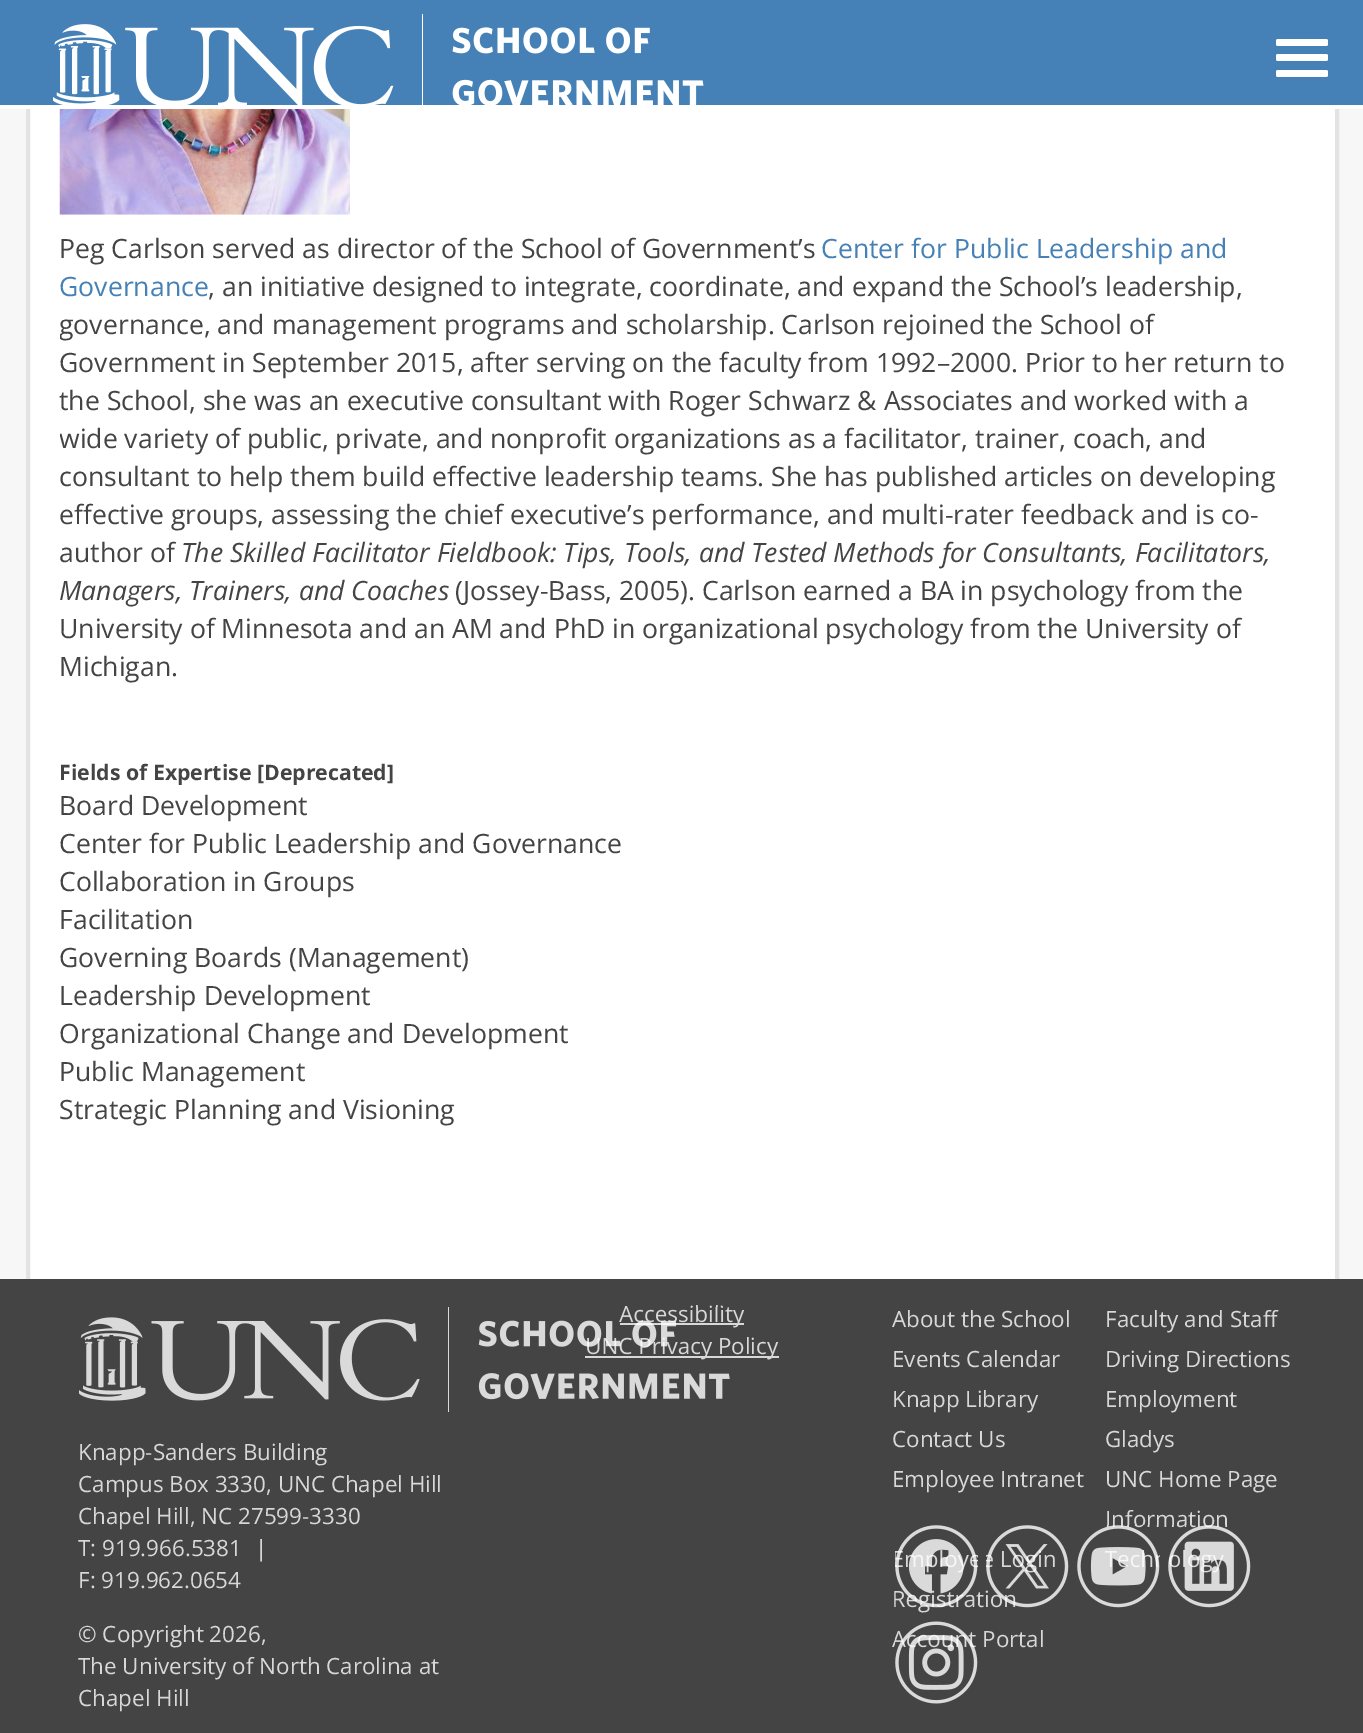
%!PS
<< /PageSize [1363 1733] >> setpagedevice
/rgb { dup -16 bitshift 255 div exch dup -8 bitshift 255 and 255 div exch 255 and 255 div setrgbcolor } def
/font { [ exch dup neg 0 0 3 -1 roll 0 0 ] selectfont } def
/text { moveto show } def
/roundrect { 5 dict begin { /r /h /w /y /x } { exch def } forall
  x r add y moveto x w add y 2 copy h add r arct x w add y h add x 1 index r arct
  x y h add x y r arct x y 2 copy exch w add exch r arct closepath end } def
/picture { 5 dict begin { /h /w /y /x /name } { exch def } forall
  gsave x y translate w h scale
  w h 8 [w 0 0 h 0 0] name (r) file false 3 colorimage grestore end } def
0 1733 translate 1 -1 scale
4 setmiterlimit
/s1 { /OpenSans-Regular 26.6 font 16#444444 rgb } def
/s2 { /OpenSans-Regular 26.6 font 16#4581B6 rgb } def
/s3 { /OpenSans-Italic 26.6 font 16#444444 rgb } def
/s4 { /OpenSans-Bold 21.25 font 16#444444 rgb } def
/s5 { /OpenSans-Regular 22.4 font 16#D8D8D8 rgb } def
16#F7F7F7 rgb
0 0 1363 1733 rectfill
16#FFFFFF rgb
30 109 1305 1170 rectfill
16#E3E3E3 rgb
4 setlinewidth
28 -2 1309 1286 rectstroke
16#4581B6 rgb
0 0 1363 105 rectfill
16#FFFFFF rgb
0 105 1363 4 rectfill
(pic1.raw) 53 14 651 91 picture
1276 39 52 7 2 roundrect fill
1276 54 52 7 2 roundrect fill
1276 70 52 7 2 roundrect fill
(pic2.raw) 59 109 291 106 picture
s1
(Peg Carlson served as director of the School of Government’s) 59 258 text
s2
(Center for Public Leadership and) 821 258 text
(Governance) 59 296 text
s1
(, an initiative designed to integrate, coordinate, and expand the School’s leadership,) 208 296 text
gsave
60 215 1246 914 rectclip
(governance, and management programs and scholarship. Carlson rejoined the School of) 59 334 text
grestore
(Government in September 2015, after serving on the faculty from 1992–2000. Prior to her return to) 59 372 text
(the School, she was an executive consultant with Roger Schwarz & Associates and worked with a) 59 410 text
gsave
60 215 1246 914 rectclip
(wide variety of public, private, and nonprofit organizations as a facilitator, trainer, coach, and) 59 448 text
grestore
(consultant to help them build effective leadership teams. She has published articles on developing) 59 486 text
(effective groups, assessing the chief executive’s performance, and multi-rater feedback and is co-) 59 524 text
(author of) 59 562 text
s3
(The Skilled Facilitator Fieldbook: Tips, Tools, and Tested Methods for Consultants, Facilitators,) 181 562 text
(Managers, Trainers, and Coaches) 59 600 text
s1
(\(Jossey-Bass, 2005\). Carlson earned a BA in psychology from the) 455 600 text
(University of Minnesota and an AM and PhD in organizational psychology from the University of) 59 638 text
(Michigan.) 59 676 text
s4
(Fields of Expertise [Deprecated]) 59 780 text
s1
(Board Development) 59 815 text
(Center for Public Leadership and Governance) 59 853 text
(Collaboration in Groups) 59 891 text
(Facilitation) 59 929 text
(Governing Boards \(Management\)) 59 967 text
(Leadership Development) 59 1005 text
(Organizational Change and Development) 59 1043 text
(Public Management) 59 1081 text
(Strategic Planning and Visioning) 59 1119 text
0 1279 1363 454 rectfill
16#D8D8D8 rgb
620 1323 124 2 rectfill
s5
(Accessibility) 619 1322 text
585 1356 194 2 rectfill
(UNC Privacy Policy) 585 1354 text
(pic3.raw) 79 1307 651 105 picture
(Knapp-Sanders Building) 78 1460 text
(Campus Box 3330, UNC Chapel Hill) 78 1492 text
(Chapel Hill, NC 27599-3330) 78 1524 text
(T: 919.966.5381) 78 1556 text
(|) 255 1556 text
(F: 919.962.0654) 78 1588 text
(© Copyright 2026,) 78 1642 text
(The University of North Carolina at) 78 1674 text
(Chapel Hill) 78 1706 text
(About the School) 892 1327 text
(Faculty and Staff) 1105 1327 text
(Events Calendar) 892 1367 text
(Driving Directions) 1105 1367 text
(Knapp Library) 892 1407 text
(Employment) 1105 1407 text
(Contact Us) 892 1447 text
(Gladys) 1105 1447 text
(Employee Intranet) 892 1487 text
(UNC Home Page) 1105 1487 text
(L) 1000 1567 text
(n) 1043 1567 text
(Information) 1105 1527 text
(l) 1181 1567 text
(Registration) 892 1607 text
(Account Portal) 892 1647 text
(pic4.raw) 895 1525 83 83 picture
(pic5.raw) 986 1525 83 83 picture
(pic6.raw) 1077 1525 83 83 picture
(pic7.raw) 1168 1525 83 83 picture
(pic8.raw) 895 1621 83 83 picture
showpage
